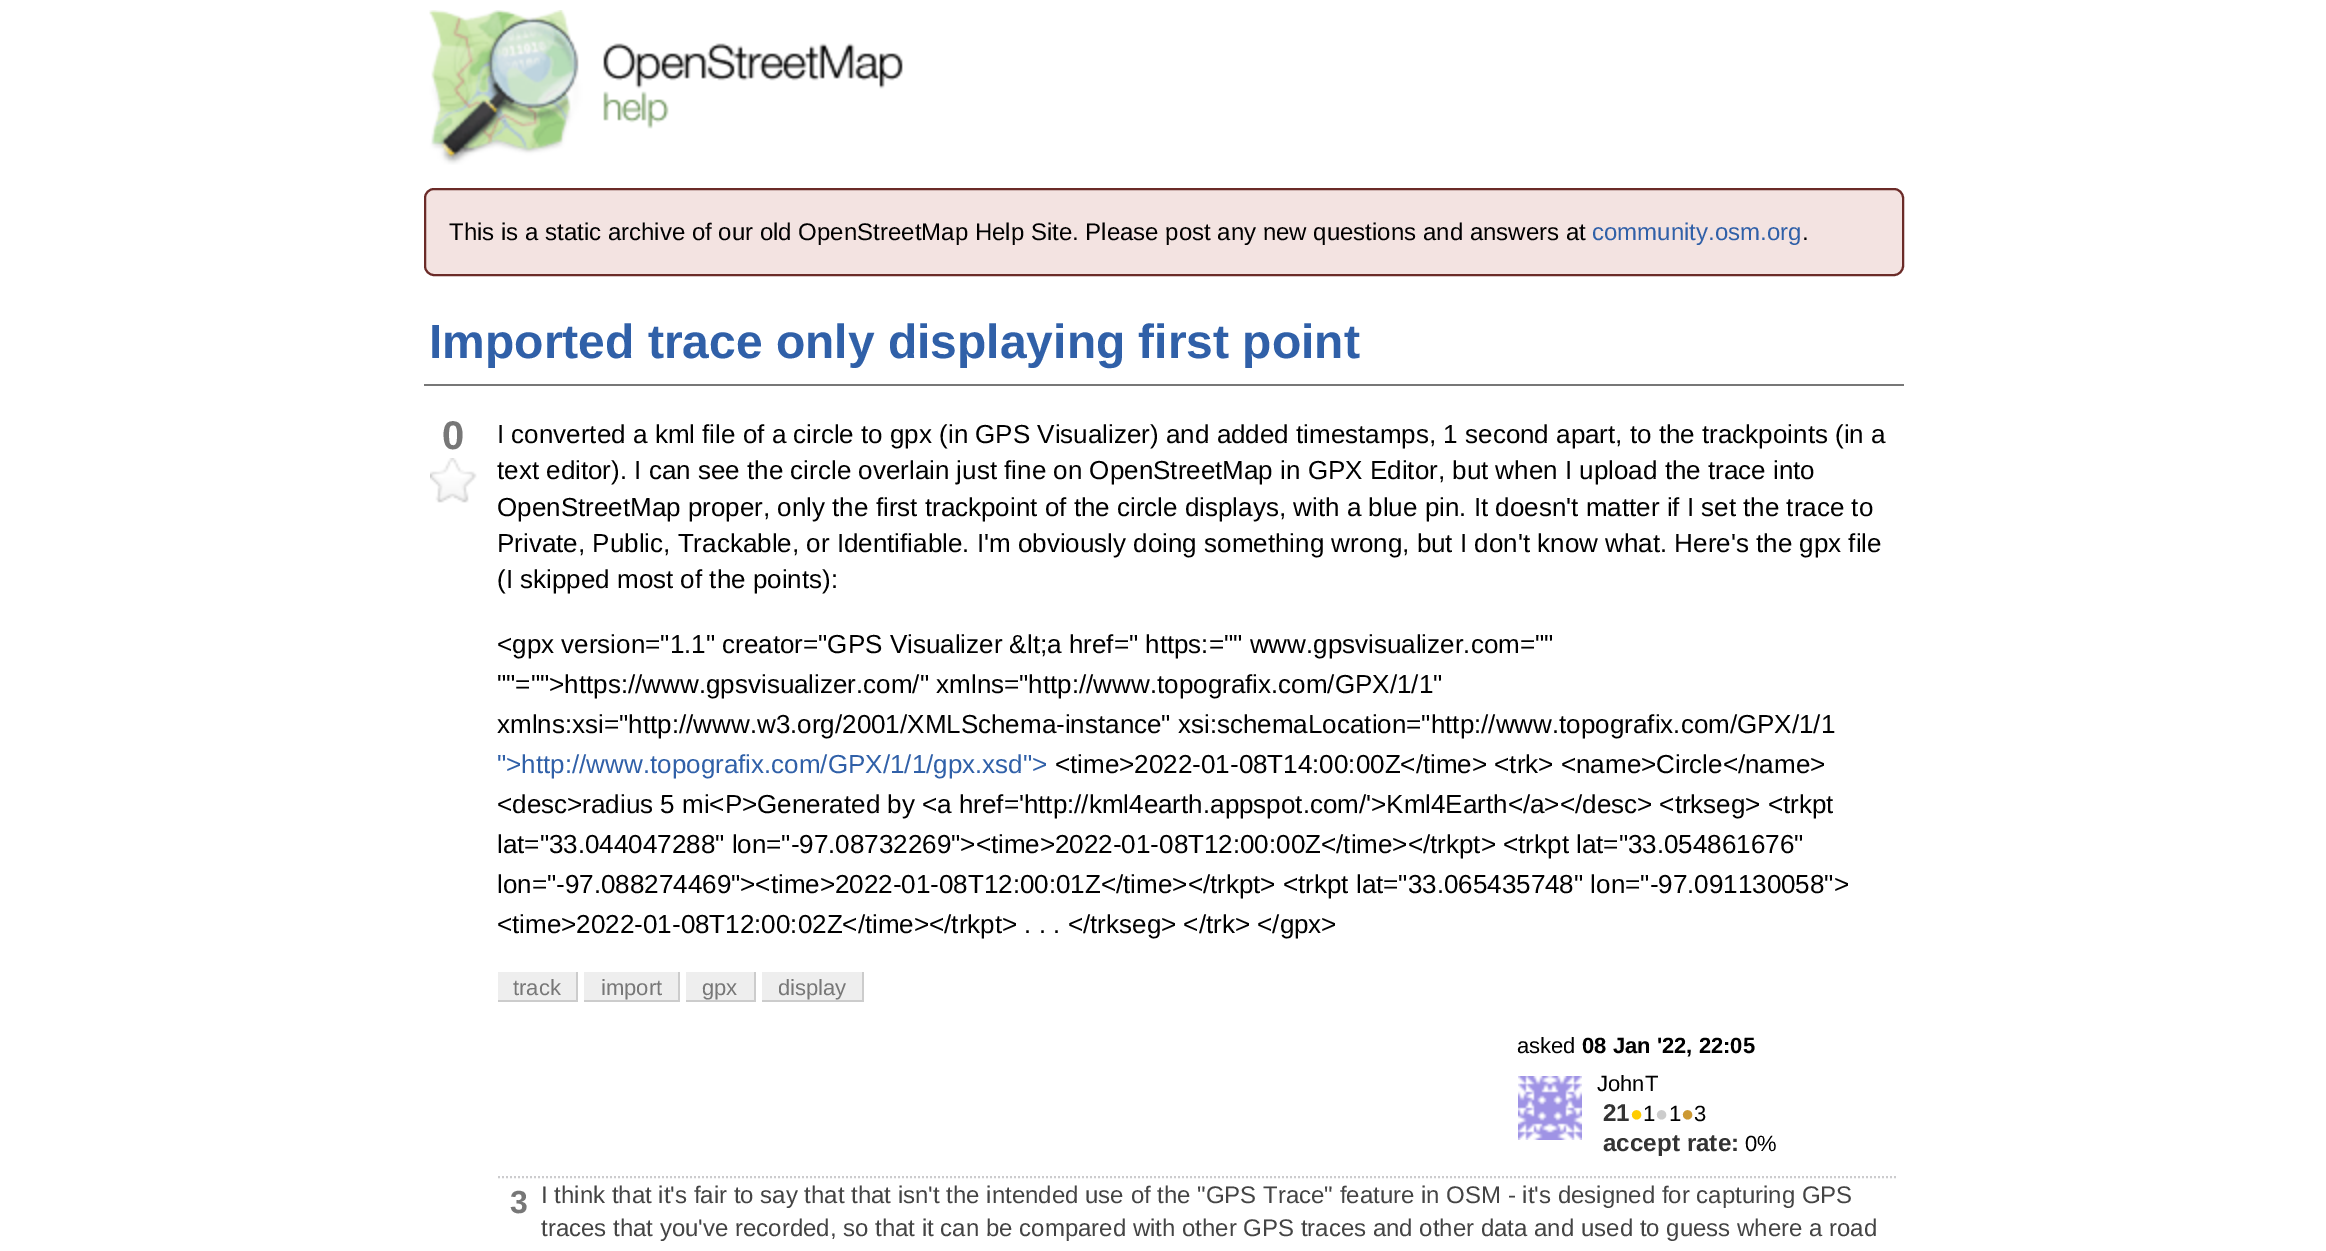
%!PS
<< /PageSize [2326 1251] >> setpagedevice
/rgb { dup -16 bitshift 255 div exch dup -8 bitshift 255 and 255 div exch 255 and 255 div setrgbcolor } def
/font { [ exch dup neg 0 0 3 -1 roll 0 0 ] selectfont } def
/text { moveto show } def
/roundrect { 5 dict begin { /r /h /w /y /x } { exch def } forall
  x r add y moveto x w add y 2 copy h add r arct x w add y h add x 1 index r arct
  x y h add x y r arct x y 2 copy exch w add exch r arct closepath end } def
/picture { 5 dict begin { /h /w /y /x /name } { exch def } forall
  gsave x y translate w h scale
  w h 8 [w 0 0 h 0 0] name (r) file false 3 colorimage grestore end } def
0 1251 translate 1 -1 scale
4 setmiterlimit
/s1 { /LiberationSans-Regular 24 font 16#000000 rgb } def
/s2 { /LiberationSans-Regular 24 font 16#3060A8 rgb } def
/s3 { /LiberationSans-Bold 48 font 16#3060A8 rgb } def
/s4 { /LiberationSans-Bold 40 font 16#777777 rgb } def
/s5 { /LiberationSans-Regular 26 font 16#000000 rgb } def
/s6 { /LiberationSans-Regular 26 font 16#3060A8 rgb } def
/s7 { /LiberationSans-Regular 22 font 16#777777 rgb } def
/s8 { /LiberationSans-Regular 22 font 16#000000 rgb } def
/s9 { /LiberationSans-Bold 22 font 16#000000 rgb } def
/s10 { /LiberationSans-Bold 24.25 font 16#333333 rgb } def
/s11 { /LiberationSans-Regular 22 font 16#FFCC00 rgb } def
/s12 { /LiberationSans-Regular 22 font 16#CCCCCC rgb } def
/s13 { /LiberationSans-Regular 22 font 16#CC9933 rgb } def
/s14 { /LiberationSans-Bold 32 font 16#777777 rgb } def
/s15 { /LiberationSans-Regular 24 font 16#444444 rgb } def
16#FFFFFF rgb
0 0 2326 1251 rectfill
(pic1.raw) 429 10 474 155 picture
16#F3E3E1 rgb
425 189 1478 86 9 roundrect gsave fill grestore
16#6B2B28 rgb
2 setlinewidth
stroke
s1
(This is a static archive of our old OpenStreetMap Help Site. Please post any new questions and answers at) 449 240 text
s2
(community.osm.org) 1592 240 text
s1
(.) 1802 240 text
16#777777 rgb
424 384 1480 2 rectfill
s3
(Imported trace only displaying first point) 429 358 text
s4
(0) 442 449 text
(pic2.raw) 430 458 47 45 picture
s5
(I converted a kml file of a circle to gpx \(in GPS Visualizer\) and added timestamps, 1 second apart, to the trackpoints \(in a) 497 443 text
(text editor\). I can see the circle overlain just fine on OpenStreetMap in GPX Editor, but when I upload the trace into) 497 479 text
(OpenStreetMap proper, only the first trackpoint of the circle displays, with a blue pin. It doesn't matter if I set the trace to) 497 516 text
(Private, Public, Trackable, or Identifiable. I'm obviously doing something wrong, but I don't know what. Here's the gpx file) 497 552 text
(\(I skipped most of the points\):) 497 588 text
(<gpx version="1.1" creator="GPS Visualizer &lt;a href=" https:="" www.gpsvisualizer.com="") 497 653 text
(""="">https://www.gpsvisualizer.com/" xmlns="http://www.topografix.com/GPX/1/1") 497 693 text
(xmlns:xsi="http://www.w3.org/2001/XMLSchema-instance" xsi:schemaLocation="http://www.topografix.com/GPX/1/1) 497 733 text
s6
(">http://www.topografix.com/GPX/1/1/gpx.xsd">) 497 773 text
s5
(<time>2022-01-08T14:00:00Z</time> <trk> <name>Circle</name>) 1055 773 text
(<desc>radius 5 mi<P>Generated by <a href='http://kml4earth.appspot.com/'>Kml4Earth</a></desc> <trkseg> <trkpt) 497 813 text
(lat="33.044047288" lon="-97.08732269"><time>2022-01-08T12:00:00Z</time></trkpt> <trkpt lat="33.054861676") 497 853 text
(lon="-97.088274469"><time>2022-01-08T12:00:01Z</time></trkpt> <trkpt lat="33.065435748" lon="-97.091130058">) 497 893 text
(<time>2022-01-08T12:00:02Z</time></trkpt> . . . </trkseg> </trk> </gpx>) 497 933 text
16#EEEEEE rgb
498 972 78 28 rectfill
s7
(track) 513 995 text
16#CCCCCC rgb
576 972 2 30 rectfill
498 1000 80 2 rectfill
16#EEEEEE rgb
584 972 94 28 rectfill
s7
(import) 601 995 text
16#CCCCCC rgb
678 972 2 30 rectfill
584 1000 96 2 rectfill
16#EEEEEE rgb
686 972 68 28 rectfill
s7
(gpx) 702 995 text
16#CCCCCC rgb
754 972 2 30 rectfill
686 1000 70 2 rectfill
16#EEEEEE rgb
762 972 100 28 rectfill
s7
(display) 778 995 text
16#CCCCCC rgb
862 972 2 30 rectfill
762 1000 102 2 rectfill
s8
(asked) 1517 1053 text
s9
(08 Jan '22, 22:05) 1582 1053 text
(pic3.raw) 1518 1076 64 64 picture
s8
(JohnT) 1597 1091 text
s10
(21) 1603 1121 text
s11
(●) 1630 1121 text
s8
(1) 1643 1121 text
s12
(●) 1655 1121 text
s8
(1) 1669 1121 text
s13
(●) 1681 1121 text
s8
(3) 1694 1121 text
s10
(accept rate:) 1603 1151 text
s8
(0%) 1745 1151 text
16#CCCCCE rgb
[2 2] 0 setdash
498 1177 moveto 1898 1177 lineto stroke
s14
(3) 510 1213 text
s15
(I think that it's fair to say that that isn't the intended use of the "GPS Trace" feature in OSM - it's designed for capturing GPS) 541 1203 text
(traces that you've recorded, so that it can be compared with other GPS traces and other data and used to guess where a road) 541 1236 text
showpage
